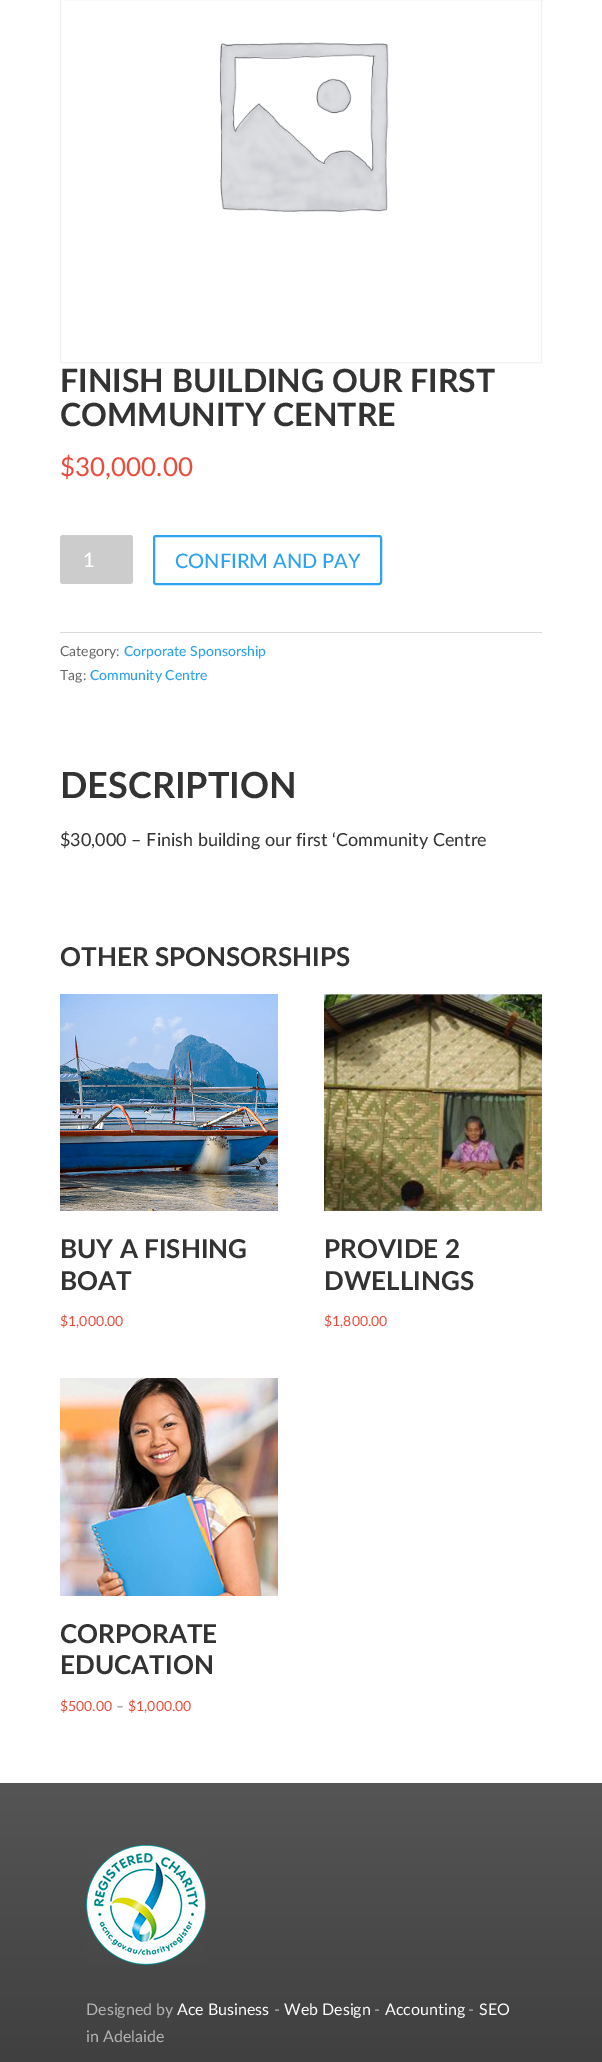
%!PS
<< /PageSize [602 2062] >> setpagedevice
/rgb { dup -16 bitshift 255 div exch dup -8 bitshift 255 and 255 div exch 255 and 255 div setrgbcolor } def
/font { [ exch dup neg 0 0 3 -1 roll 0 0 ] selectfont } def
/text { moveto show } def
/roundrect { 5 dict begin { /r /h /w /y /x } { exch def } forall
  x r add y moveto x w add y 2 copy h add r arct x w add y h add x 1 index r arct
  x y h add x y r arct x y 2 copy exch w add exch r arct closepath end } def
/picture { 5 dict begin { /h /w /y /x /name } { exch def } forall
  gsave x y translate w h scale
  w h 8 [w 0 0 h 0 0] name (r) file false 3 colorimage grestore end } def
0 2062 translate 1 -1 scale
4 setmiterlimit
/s1 { /Lato-Bold 32 font 16#333333 rgb } def
/s2 { /Lato-Regular 26 font 16#E74C3C rgb } def
/s3 { /Lato-Medium 20 font 16#FFFFFF rgb } def
/s4 { /Lato-Medium 20 font 16#2EA3F2 rgb } def
/s5 { /Lato-Regular 14 font 16#666666 rgb } def
/s6 { /Lato-Medium 14 font 16#2EA3F2 rgb } def
/s7 { /Lato-Bold 36 font 16#333333 rgb } def
/s8 { /Lato-Regular 18 font 16#333333 rgb } def
/s9 { /Lato-Bold 26 font 16#333333 rgb } def
/s10 { /Lato-Regular 14 font 16#E74C3C rgb } def
/s11 { /Lato-Regular 16 font 16#B4B4B4 rgb } def
/s12 { /Lato-Regular 16 font 16#FFFFFF rgb } def
16#FFFFFF rgb
0 0 602 2062 rectfill
16#F2F2F2 rgb
60.5 -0.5 481 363 rectstroke
(pic1.raw) 219 42 170 170 picture
s1
(FINISH BUILDING OUR FIRST) 60 392 text
(COMMUNITY CENTRE) 60 426 text
s2
($30,000.00) 60 476 text
16#CCCCCC rgb
60 535 73 49 3 roundrect fill
s3
(1) 83 567 text
16#2EA3F2 rgb
2 setlinewidth
154 536 227 48 2 roundrect stroke
(CONFIRM AND PAY) 175 568 text
16#DADADA rgb
60 632 482 1 rectfill
s5
(Category:) 60 656 text
s6
(Corporate Sponsorship) 124 656 text
s5
(Tag:) 60 680 text
s6
(Community Centre) 90 680 text
s7
(DESCRIPTION) 60 798 text
s8
($30,000 – Finish building our first ‘Community Centre) 60 846 text
s9
(OTHER SPONSORSHIPS) 60 966 text
(pic2.raw) 60 994 218 217 picture
(BUY A FISHING) 60 1258 text
(BOAT) 60 1290 text
s10
($1,000.00) 60 1326 text
(pic3.raw) 324 994 218 217 picture
s9
(PROVIDE 2) 324 1258 text
(DWELLINGS) 324 1290 text
s10
($1,800.00) 324 1326 text
(pic4.raw) 60 1378 218 218 picture
s9
(CORPORATE) 60 1643 text
(EDUCATION) 60 1674 text
s10
($500.00) 60 1711 text
s5
(–) 116 1711 text
s10
($1,000.00) 128 1711 text
gsave 0 1783 moveto 602 1783 lineto 602 2062 lineto 0 2062 lineto closepath clip newpath
<< /ShadingType 2 /ColorSpace /DeviceRGB /Coords [301 1783 301 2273] /Extend [true true] /Function << /FunctionType 2 /Domain [0 1] /C0 [0.333 0.333 0.333] /C1 [0.192 0.192 0.192] /N 1 >> >> shfill grestore
(pic5.raw) 86 1845 120 120 picture
s11
(Designed by) 86 2015 text
s12
(Ace Business) 177 2015 text
s11
(-) 274 2015 text
s12
(Web Design) 284 2015 text
s11
(-) 374 2015 text
s12
(Accounting) 385 2015 text
s11
(-) 468 2015 text
s12
(SEO) 479 2015 text
s11
(in Adelaide) 86 2042 text
showpage
